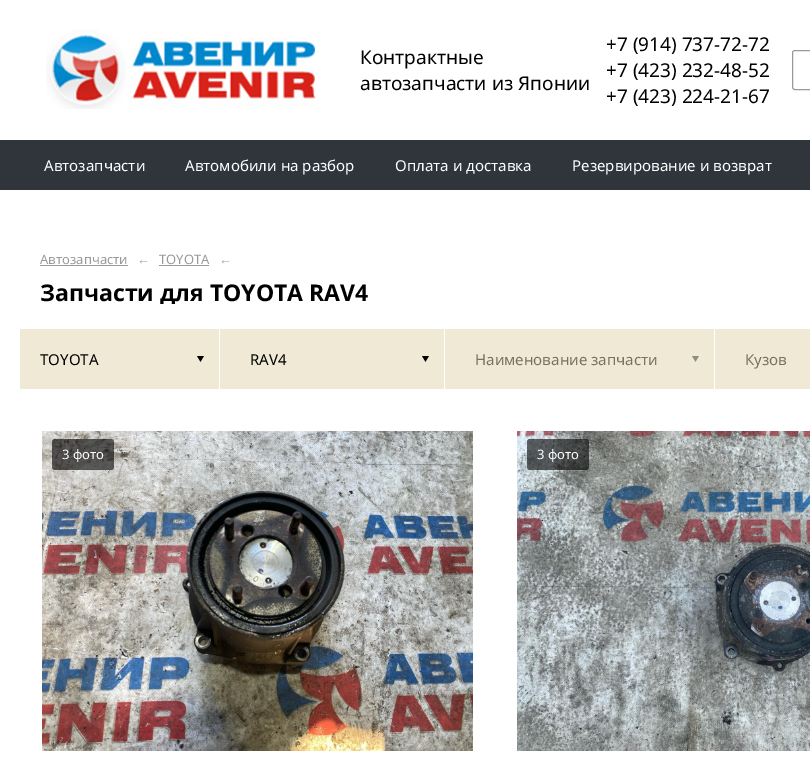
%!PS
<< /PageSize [810 759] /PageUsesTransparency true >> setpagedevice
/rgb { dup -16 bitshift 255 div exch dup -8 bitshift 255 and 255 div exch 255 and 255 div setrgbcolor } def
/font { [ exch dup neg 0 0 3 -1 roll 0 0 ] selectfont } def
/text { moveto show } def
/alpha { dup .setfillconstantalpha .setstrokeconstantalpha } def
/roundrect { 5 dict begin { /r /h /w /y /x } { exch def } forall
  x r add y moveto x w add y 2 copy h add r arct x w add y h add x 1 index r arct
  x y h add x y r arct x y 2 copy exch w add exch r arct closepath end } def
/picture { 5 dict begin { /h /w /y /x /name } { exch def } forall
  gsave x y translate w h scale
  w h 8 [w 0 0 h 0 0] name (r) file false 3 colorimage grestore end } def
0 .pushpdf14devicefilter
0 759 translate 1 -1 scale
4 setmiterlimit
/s1 { /NotoSans-Regular 19 font 16#000000 rgb } def
/s2 { /NotoSans-Regular 15 font 16#FFFFFF rgb } def
/s3 { /NotoSans-Regular 13 font 16#999999 rgb } def
/s4 { /NotoSans-Bold 23 font 16#000000 rgb } def
/s5 { /NotoSans-Regular 15 font 16#000000 rgb } def
/s6 { /NotoSans-Regular 15 font 16#79725D rgb } def
/s7 { /NotoSans-Regular 13 font 16#FFFFFF rgb } def
16#FFFFFF rgb
0 0 810 759 rectfill
(pic1.raw) 46 29 269 80 picture
s1
(Контрактные) 360 64 text
(автозапчасти из Японии) 360 90 text
(+7 \(914\) 737-72-72) 606 51 text
(+7 \(423\) 232-48-52) 606 77 text
(+7 \(423\) 224-21-67) 606 103 text
16#999999 rgb
792.5 50.5 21 39 2.5 roundrect stroke
16#30353C rgb
0 140 810 50 rectfill
s2
(Автозапчасти) 44 171 text
(Автомобили на разбор) 185 171 text
(Оплата и доставка) 395 171 text
(Резервирование и возврат) 572 171 text
s3
(Автозапчасти) 40 264 text
40 265 88 1 rectfill
(←) 137 264 text
(TOYOTA) 159 264 text
159 265 50 1 rectfill
(←) 219 264 text
gsave
40 266 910 38 rectclip
s4
(Запчасти для TOYOTA RAV4) 40 301 text
grestore
16#EFE9D5 rgb
20 329 199 60 rectfill
s5
(TOYOTA) 40 365 text
(pic2.raw) 197 356 7 6 picture
16#EFE9D5 rgb
220 329 224 60 rectfill
s5
(RAV4) 250 365 text
(pic2.raw) 422 356 7 6 picture
16#EFE9D5 rgb
445 329 269 60 rectfill
s6
(Наименование запчасти) 475 365 text
(pic3.raw) 692 356 7 6 picture
16#EFE9D5 rgb
715 329 95 60 rectfill
s6
(Кузов) 745 365 text
(pic4.raw) 42 431 431 320 picture
0.6 alpha
16#000000 rgb
52 439 62 31 3 roundrect fill
1 alpha
s7
(3 фото) 62 459 text
(pic5.raw) 517 431 293 320 picture
0.6 alpha
16#000000 rgb
527 439 62 31 3 roundrect fill
1 alpha
s7
(3 фото) 537 459 text
.poppdf14devicefilter showpage
